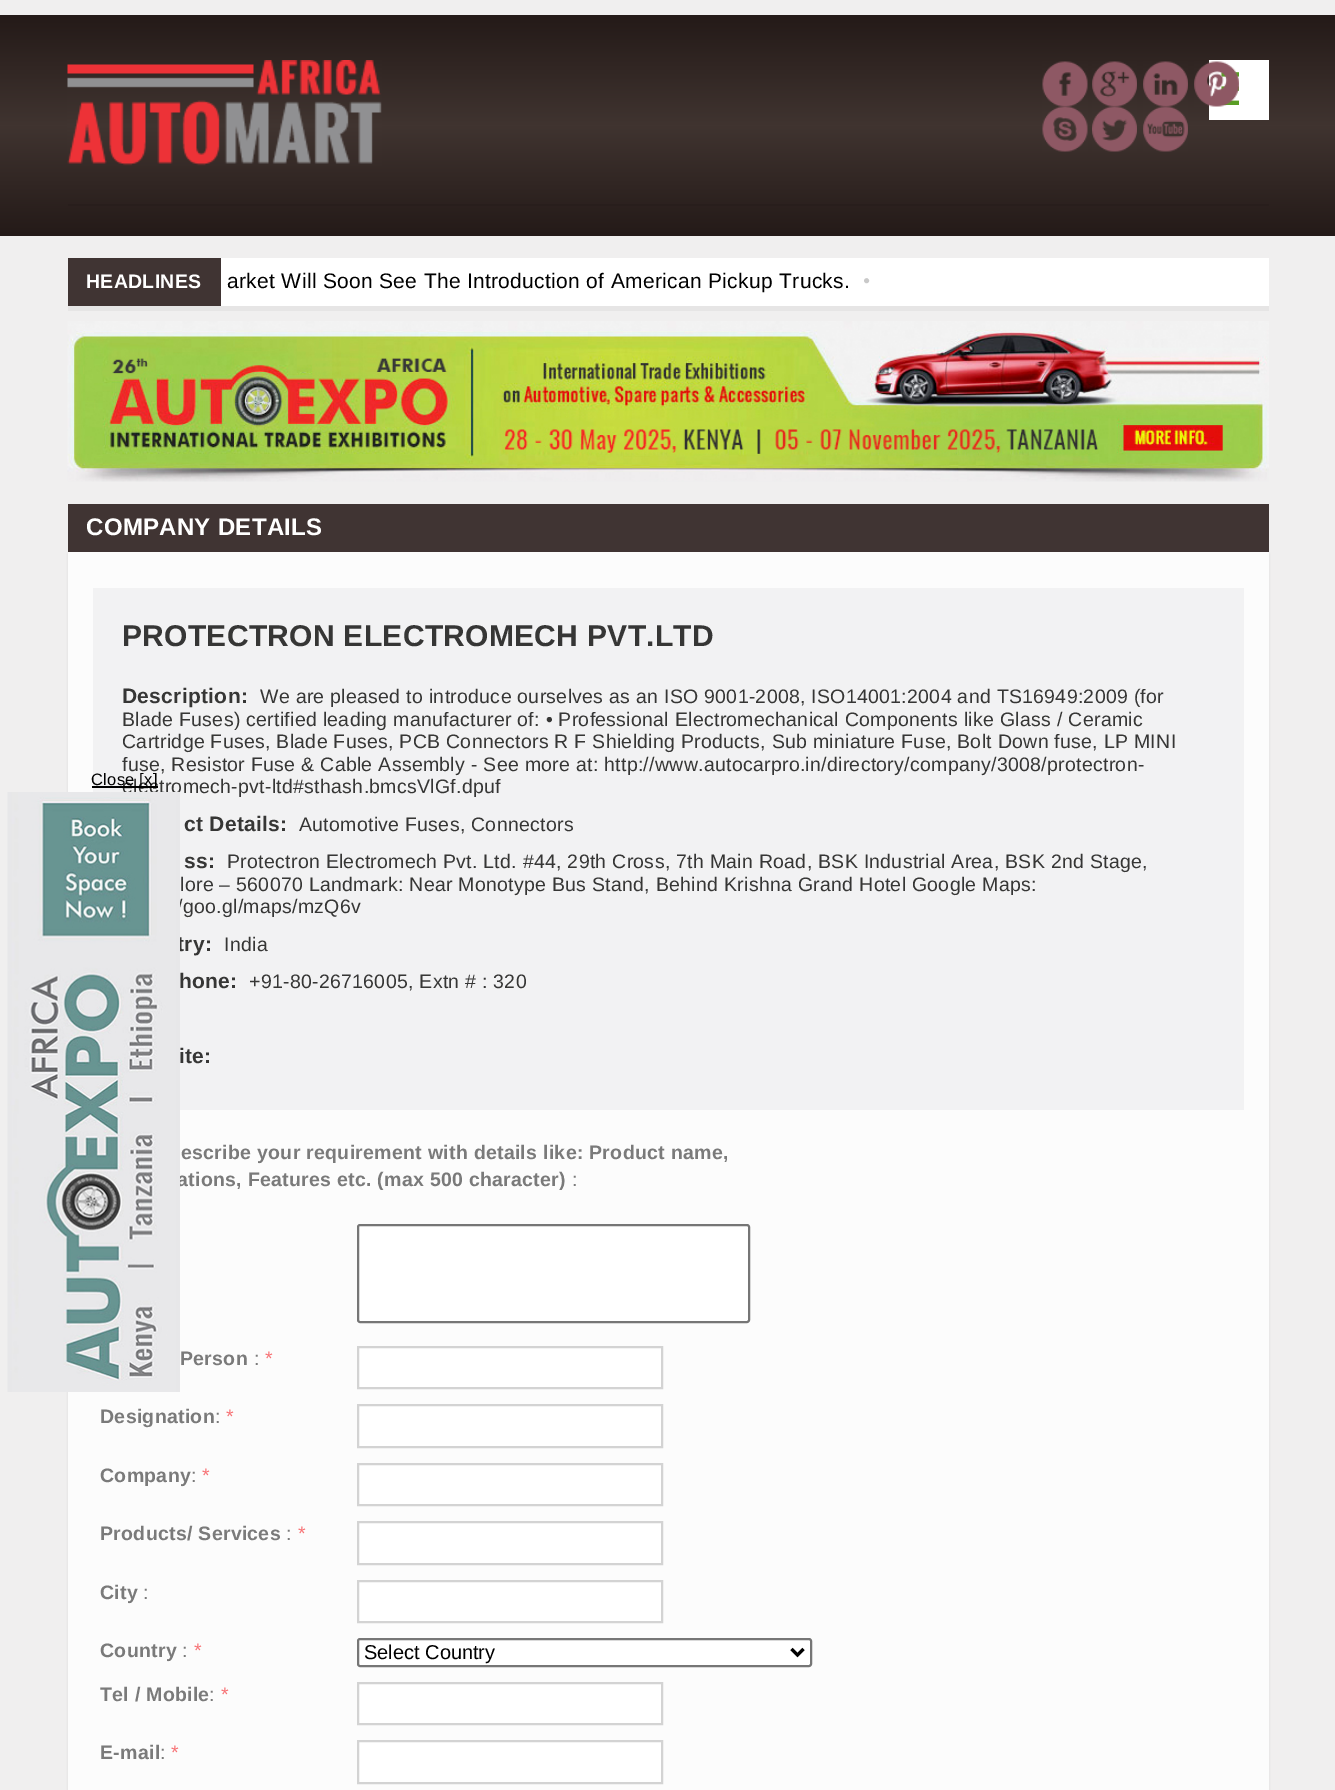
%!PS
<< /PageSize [1335 1790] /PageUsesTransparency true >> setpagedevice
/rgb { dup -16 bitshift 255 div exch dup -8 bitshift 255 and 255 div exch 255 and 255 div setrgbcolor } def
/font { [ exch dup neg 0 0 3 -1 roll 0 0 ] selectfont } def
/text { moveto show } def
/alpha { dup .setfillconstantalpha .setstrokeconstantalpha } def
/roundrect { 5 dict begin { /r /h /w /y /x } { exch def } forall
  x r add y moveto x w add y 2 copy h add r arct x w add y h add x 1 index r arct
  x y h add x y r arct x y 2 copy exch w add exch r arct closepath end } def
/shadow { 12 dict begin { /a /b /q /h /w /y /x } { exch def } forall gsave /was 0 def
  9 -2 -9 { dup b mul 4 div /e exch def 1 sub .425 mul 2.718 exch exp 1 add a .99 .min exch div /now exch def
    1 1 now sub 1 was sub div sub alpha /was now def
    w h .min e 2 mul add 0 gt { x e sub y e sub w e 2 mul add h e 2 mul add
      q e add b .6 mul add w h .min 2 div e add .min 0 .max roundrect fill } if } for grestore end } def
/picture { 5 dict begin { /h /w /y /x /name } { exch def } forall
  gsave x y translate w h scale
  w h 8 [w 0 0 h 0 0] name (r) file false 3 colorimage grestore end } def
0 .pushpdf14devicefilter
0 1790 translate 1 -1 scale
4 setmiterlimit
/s1 { /LiberationSans-Regular 20 font 16#000000 rgb } def
16#F0EFEF rgb
0 0 1335 1790 rectfill
gsave 0 15 moveto 1335 15 lineto 1335 236 lineto 0 236 lineto closepath clip newpath
<< /ShadingType 2 /ColorSpace /DeviceRGB /Coords [668 15 668 236] /Extend [true true] /Function << /FunctionType 3 /Domain [0 1] /Functions [<< /FunctionType 2 /Domain [0 1] /C0 [0.141 0.102 0.094] /C1 [0.251 0.204 0.188] /N 1 >> << /FunctionType 2 /Domain [0 1] /C0 [0.251 0.204 0.188] /C1 [0.141 0.102 0.094] /N 1 >>] /Bounds [0.5] /Encode [0 1 0 1] >> >> shfill grestore
(pic1.raw) 67 60 315 106 picture
(pic2.raw) 1042 61 46 46 picture
(pic3.raw) 1092 61 45 46 picture
(pic4.raw) 1143 61 45 46 picture
16#FFFFFF rgb
1209 60 60 60 rectfill
(pic5.raw) 1194 61 45 46 picture
(pic6.raw) 1042 106 46 46 picture
(pic7.raw) 1092 106 45 46 picture
(pic8.raw) 1143 106 45 46 picture
16#281E1C rgb
68 204 1201 2 rectfill
16#E6E5E5 rgb
68 306 1201 5 rectfill
16#FFFFFF rgb
221 258 1048 48 rectfill
16#403433 rgb
68 258 153 48 rectfill
/LiberationSans-Bold 19.5 font
16#FFFFFF rgb
86 288 moveto 0.29 0 (HEADLINES) ashow
/LiberationSans-Regular 21 font
16#000000 rgb
227 288 moveto 0.32 0 (arket Will Soon See The Introduction of American Pickup Trucks.) ashow
/LiberationSerif-Regular 12 font
16#C9C9C9 rgb
863 284 moveto 0.29 0 (●) ashow
(pic9.raw) 67 321 1202 161 picture
16#403433 rgb
68 504 1201 48 rectfill
/LiberationSans-Bold 24 font
16#FFFFFF rgb
86 535 moveto 0.29 0 (COMPANY DETAILS) ashow
16#000000 rgb
68 554 1201 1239 0 1 0.08 shadow
16#FCFCFC rgb
68 552 1201 1238 rectfill
16#F2F2F3 rgb
93 588 1151 522 rectfill
/LiberationSans-Bold 30 font
16#363635 rgb
122 646 moveto 0.29 0 (PROTECTRON ELECTROMECH PVT.LTD) ashow
/LiberationSans-Bold 21 font
122 703 moveto 0.29 0 (Description:) ashow
/LiberationSans-Regular 19.5 font
260 703 moveto 0.29 0 (We are pleased to introduce ourselves as an ISO 9001-2008, ISO14001:2004 and TS16949:2009 \(for) ashow
122 726 moveto 0.29 0 (Blade Fuses\) certified leading manufacturer of: • Professional Electromechanical Components like Glass / Ceramic) ashow
122 748 moveto 0.29 0 (Cartridge Fuses, Blade Fuses, PCB Connectors R F Shielding Products, Sub miniature Fuse, Bolt Down fuse, LP MINI) ashow
122 771 moveto 0.29 0 (fuse, Resistor Fuse & Cable Assembly - See more at: http://www.autocarpro.in/directory/company/3008/protectron-) ashow
122 793 moveto 0.29 0 (electromech-pvt-ltd#sthash.bmcsVlGf.dpuf) ashow
/LiberationSans-Bold 21 font
184 831 moveto 0.29 0 (ct Details:) ashow
/LiberationSans-Regular 19.5 font
299 831 moveto 0.29 0 (Automotive Fuses, Connectors) ashow
/LiberationSans-Bold 21 font
184 868 moveto 0.29 0 (ss:) ashow
/LiberationSans-Regular 19.5 font
227 868 moveto 0.29 0 (Protectron Electromech Pvt. Ltd. #44, 29th Cross, 7th Main Road, BSK Industrial Area, BSK 2nd Stage,) ashow
180 891 moveto 0.29 0 (lore – 560070 Landmark: Near Monotype Bus Stand, Behind Krishna Grand Hotel Google Maps:) ashow
177 913 moveto 0.29 0 (/goo.gl/maps/mzQ6v) ashow
/LiberationSans-Bold 21 font
177 951 moveto 0.29 0 (try:) ashow
/LiberationSans-Regular 19.5 font
224 951 moveto 0.29 0 (India) ashow
/LiberationSans-Bold 21 font
179 988 moveto 0.29 0 (hone:) ashow
/LiberationSans-Regular 19.5 font
249 988 moveto 0.29 0 (+91-80-26716005, Extn # : 320) ashow
/LiberationSans-Bold 21 font
179 1063 moveto 0.29 0 (ite:) ashow
/LiberationSans-Bold 19.5 font
16#7A7A7A rgb
181 1159 moveto 0.29 0 (escribe your requirement with details like: Product name,) ashow
177 1186 moveto 0.29 0 (ations, Features etc. \(max 500 character\)) ashow
/LiberationSans-Regular 19.5 font
572 1186 moveto 0.29 0 (:) ashow
16#FFFFFF rgb
358 1225 391 97 2 roundrect gsave fill grestore
16#767676 rgb
2 setlinewidth
stroke
/LiberationSans-Bold 19.5 font
16#7A7A7A rgb
180 1365 moveto 0.29 0 (Person) ashow
/LiberationSans-Regular 19.5 font
254 1365 moveto 0.29 0 (:) ashow
16#F77376 rgb
265 1365 moveto 0.29 0 (*) ashow
16#FFFFFF rgb
358 1347 moveto 662 1347 lineto 662 1388 lineto 358 1388 lineto closepath gsave fill grestore
16#D3D3D3 rgb
stroke
/LiberationSans-Bold 19.5 font
16#7A7A7A rgb
100 1423 moveto 0.29 0 (Designation) ashow
/LiberationSans-Regular 19.5 font
215 1423 moveto 0.29 0 (:) ashow
16#F77376 rgb
226 1423 moveto 0.29 0 (*) ashow
16#FFFFFF rgb
358 1405 moveto 662 1405 lineto 662 1447 lineto 358 1447 lineto closepath gsave fill grestore
16#D3D3D3 rgb
stroke
/LiberationSans-Bold 19.5 font
16#7A7A7A rgb
100 1482 moveto 0.29 0 (Company) ashow
/LiberationSans-Regular 19.5 font
191 1482 moveto 0.29 0 (:) ashow
16#F77376 rgb
202 1482 moveto 0.29 0 (*) ashow
16#FFFFFF rgb
358 1464 moveto 662 1464 lineto 662 1505 lineto 358 1505 lineto closepath gsave fill grestore
16#D3D3D3 rgb
stroke
/LiberationSans-Bold 19.5 font
16#7A7A7A rgb
100 1540 moveto 0.29 0 (Products/ Services) ashow
/LiberationSans-Regular 19.5 font
286 1540 moveto 0.29 0 (:) ashow
16#F77376 rgb
298 1540 moveto 0.29 0 (*) ashow
16#FFFFFF rgb
358 1522 moveto 662 1522 lineto 662 1564 lineto 358 1564 lineto closepath gsave fill grestore
16#D3D3D3 rgb
stroke
/LiberationSans-Bold 19.5 font
16#7A7A7A rgb
100 1599 moveto 0.29 0 (City) ashow
/LiberationSans-Regular 19.5 font
143 1599 moveto 0.29 0 (:) ashow
16#FFFFFF rgb
358 1581 moveto 662 1581 lineto 662 1622 lineto 358 1622 lineto closepath gsave fill grestore
16#D3D3D3 rgb
stroke
/LiberationSans-Bold 19.5 font
16#7A7A7A rgb
100 1657 moveto 0.29 0 (Country) ashow
/LiberationSans-Regular 19.5 font
182 1657 moveto 0.29 0 (:) ashow
16#F77376 rgb
194 1657 moveto 0.29 0 (*) ashow
16#FFFFFF rgb
358 1639 453 27 2 roundrect gsave fill grestore
16#767676 rgb
stroke
16#000000 rgb
3 setlinewidth
791.5 1649 moveto 797.5 1655 lineto 803.5 1649 lineto stroke
s1
(Select Country) 364 1659 text
/LiberationSans-Bold 19.5 font
16#7A7A7A rgb
100 1701 moveto 0.29 0 (Tel / Mobile) ashow
/LiberationSans-Regular 19.5 font
209 1701 moveto 0.29 0 (:) ashow
16#F77376 rgb
221 1701 moveto 0.29 0 (*) ashow
16#FFFFFF rgb
358 1683 moveto 662 1683 lineto 662 1724 lineto 358 1724 lineto closepath gsave fill grestore
16#D3D3D3 rgb
2 setlinewidth
stroke
/LiberationSans-Bold 19.5 font
16#7A7A7A rgb
100 1759 moveto 0.29 0 (E-mail) ashow
/LiberationSans-Regular 19.5 font
160 1759 moveto 0.29 0 (:) ashow
16#F77376 rgb
171 1759 moveto 0.29 0 (*) ashow
16#FFFFFF rgb
358 1741 moveto 662 1741 lineto 662 1783 lineto 358 1783 lineto closepath gsave fill grestore
16#D3D3D3 rgb
stroke
16#000000 rgb
92 786 66 2 rectfill
/LiberationSans-Regular 16.5 font
91 785 moveto 0.25 0 (Close [x]) ashow
(pic10.raw) 7 792 173 600 picture
.poppdf14devicefilter showpage
